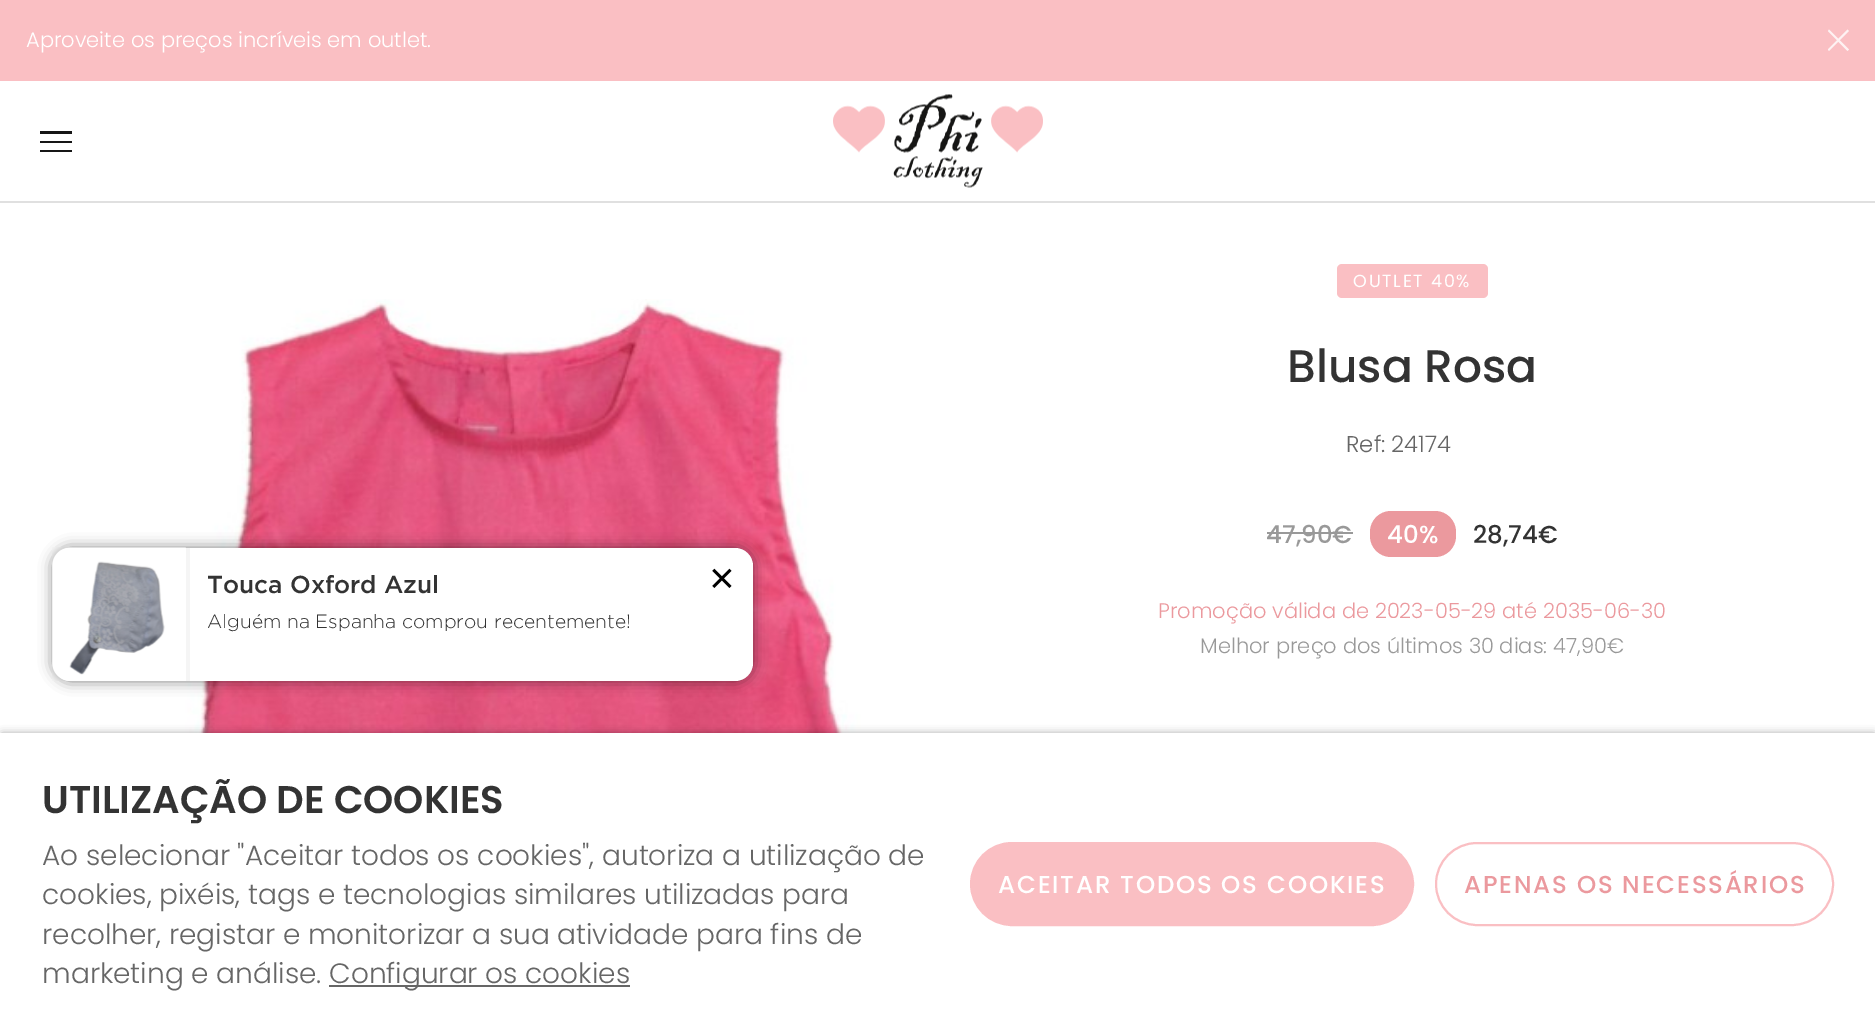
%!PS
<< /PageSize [1875 1035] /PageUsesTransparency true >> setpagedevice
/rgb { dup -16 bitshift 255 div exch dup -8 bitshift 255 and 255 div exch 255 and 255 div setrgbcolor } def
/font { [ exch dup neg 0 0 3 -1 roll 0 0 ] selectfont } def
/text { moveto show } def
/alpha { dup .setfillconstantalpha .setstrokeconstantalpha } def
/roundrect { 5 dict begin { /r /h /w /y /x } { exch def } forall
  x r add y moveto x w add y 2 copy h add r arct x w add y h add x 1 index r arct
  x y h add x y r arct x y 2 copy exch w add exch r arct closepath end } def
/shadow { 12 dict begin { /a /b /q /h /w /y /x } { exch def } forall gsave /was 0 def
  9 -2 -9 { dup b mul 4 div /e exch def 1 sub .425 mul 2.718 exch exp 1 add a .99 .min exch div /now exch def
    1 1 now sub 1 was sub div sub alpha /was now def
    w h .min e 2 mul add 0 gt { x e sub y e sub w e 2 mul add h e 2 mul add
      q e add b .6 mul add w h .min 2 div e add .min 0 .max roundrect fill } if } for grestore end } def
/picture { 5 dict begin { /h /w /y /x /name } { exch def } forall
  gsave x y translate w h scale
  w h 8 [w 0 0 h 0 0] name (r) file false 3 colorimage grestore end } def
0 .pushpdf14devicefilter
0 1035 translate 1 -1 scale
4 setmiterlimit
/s1 { /Poppins-Light 21 font 16#FFFFFF rgb } def
/s2 { /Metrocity-Medium 24.5 font 16#333333 rgb } def
/s3 { /Metrocity-Light 19.25 font 16#333333 rgb } def
/s4 { /Poppins-Medium 45.5 font 16#333333 rgb } def
/s5 { /Poppins-Light 22.75 font 16#666666 rgb } def
/s6 { /Poppins-Medium 24.5 font 16#999999 rgb } def
/s7 { /Poppins-Medium 24.5 font 16#FFFFFF rgb } def
/s8 { /Poppins-Medium 24.5 font 16#333333 rgb } def
/s9 { /Poppins-Light 21 font 16#EB999E rgb } def
/s10 { /Poppins-Light 21 font 16#999999 rgb } def
/s11 { /Poppins-SemiBold 38.5 font 16#333333 rgb } def
/s12 { /Poppins-Light 28 font 16#666666 rgb } def
16#FFFFFF rgb
0 0 1875 1035 rectfill
16#FABFC3 rgb
0 0 1875 81 rectfill
s1
(Aproveite os preços incríveis em outlet.) 26 47 text
16#FEF2F3 rgb
1847.5 29.5 moveto 1849 31 lineto 1829 51 lineto 1828 49.5 lineto closepath fill
1828 31 moveto 1829 29.5 lineto 1849 49.5 lineto 1847.5 51 lineto closepath fill
16#E0E0E0 rgb
0 201 1875 2 rectfill
16#161616 rgb
40 141 32 2 rectfill
40 131 32 3 rectfill
40 150 32 2 rectfill
(pic1.raw) 833 94 210 94 picture
(pic4.raw) 107 299 807 434 picture
16#000000 rgb
53 548 700 133 18 7 0.5 shadow
16#FFFFFF rgb
53 548 700 133 18 roundrect fill
16#F5F5F5 rgb
186 548 4 133 rectfill
(pic2.raw) 52 547 134 134 picture
s2
(Touca Oxford Azul) 207 593 text
s3
(Alguém na Espanha comprou recentemente!) 207 628 text
(pic3.raw) 712 568 20 20 picture
16#FABFC3 rgb
1337 264 151 34 5 roundrect fill
/Poppins-Regular 17.5 font
16#FFFFFF rgb
1353 287 moveto 1.75 0 (OUTLET 40%) ashow
s4
(Blusa Rosa) 1287 382 text
s5
(Ref: 24174) 1346 452 text
s6
(47,90€) 1266 543 text
1267 532 86 2 rectfill
16#EB999E rgb
1370 511 86 46 21 roundrect fill
s7
(40%) 1387 543 text
s8
(28,74€) 1473 543 text
s9
(Promoção válida de 2023-05-29 até 2035-06-30) 1158 618 text
s10
(Melhor preço dos últimos 30 dias: 47,90€) 1200 653 text
16#000000 rgb
2 735 1872 299 0 4.5 0.5 shadow
16#FFFFFF rgb
0 733 1875 302 rectfill
s11
(UTILIZAÇÃO DE COOKIES) 42 813 text
s12
(Ao selecionar "Aceitar todos os cookies", autoriza a utilização de) 42 865 text
(cookies, pixéis, tags e tecnologias similares utilizadas para) 42 904 text
(recolher, registar e monitorizar a sua atividade para fins de) 42 944 text
(marketing e análise.) 42 983 text
329 985 301 2 rectfill
(Configurar os cookies) 329 983 text
16#FABFC3 rgb
971 843 442 82 41 roundrect gsave fill grestore
2 setlinewidth
stroke
/Poppins-Medium 24.5 font
16#FFFFFF rgb
998 893 moveto 1.75 0 (ACEITAR TODOS OS COOKIES) ashow
16#FABFC3 rgb
1436 843 397 82 41 roundrect stroke
16#EB999E rgb
1464 893 moveto 1.75 0 (APENAS OS NECESSÁRIOS) ashow
.poppdf14devicefilter showpage
